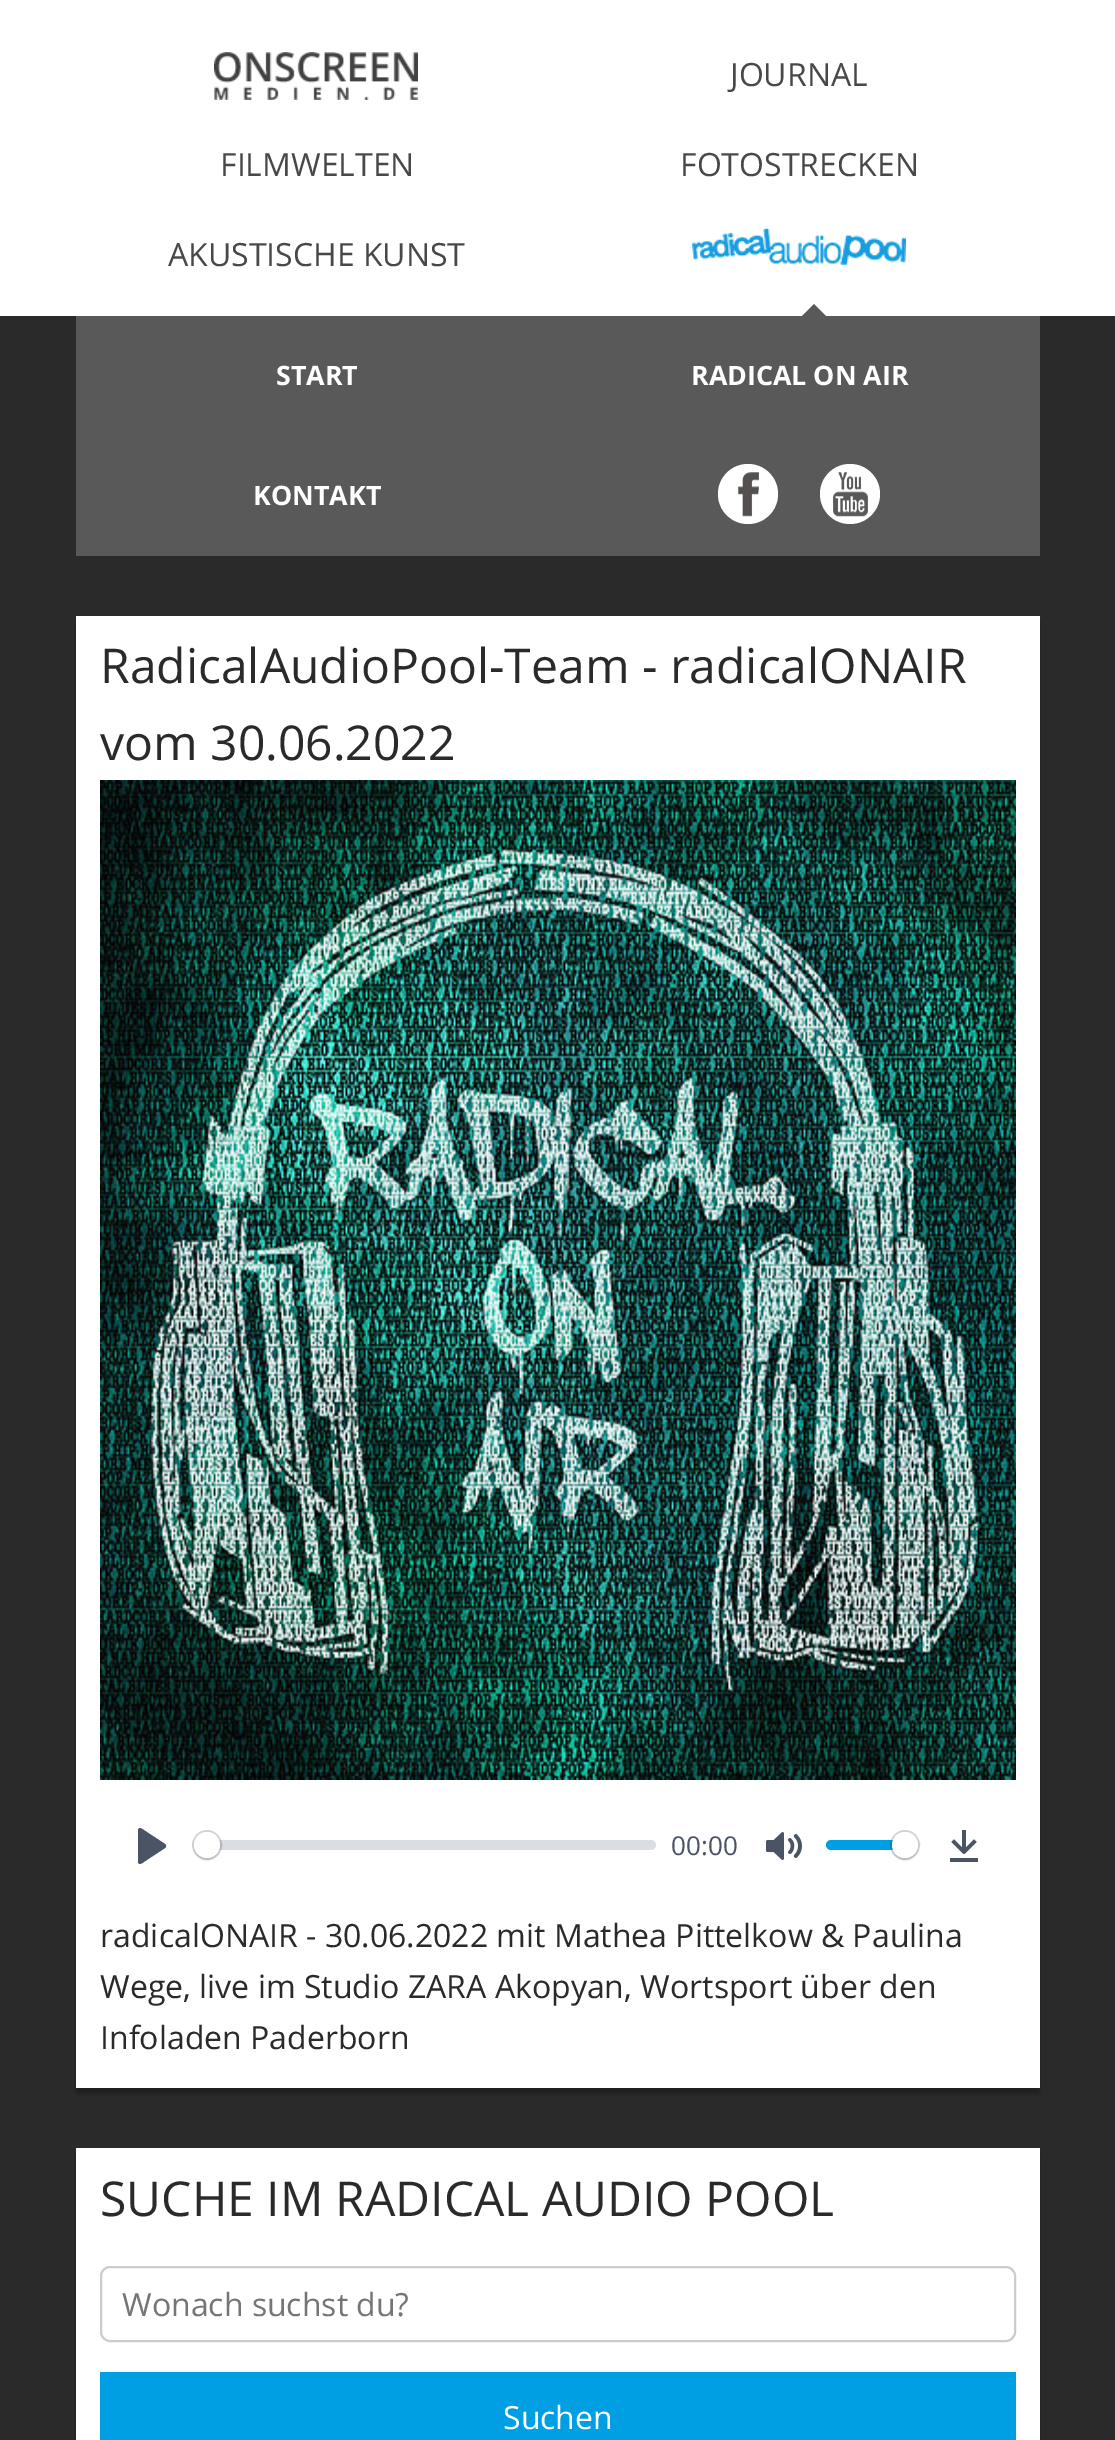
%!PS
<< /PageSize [1115 2440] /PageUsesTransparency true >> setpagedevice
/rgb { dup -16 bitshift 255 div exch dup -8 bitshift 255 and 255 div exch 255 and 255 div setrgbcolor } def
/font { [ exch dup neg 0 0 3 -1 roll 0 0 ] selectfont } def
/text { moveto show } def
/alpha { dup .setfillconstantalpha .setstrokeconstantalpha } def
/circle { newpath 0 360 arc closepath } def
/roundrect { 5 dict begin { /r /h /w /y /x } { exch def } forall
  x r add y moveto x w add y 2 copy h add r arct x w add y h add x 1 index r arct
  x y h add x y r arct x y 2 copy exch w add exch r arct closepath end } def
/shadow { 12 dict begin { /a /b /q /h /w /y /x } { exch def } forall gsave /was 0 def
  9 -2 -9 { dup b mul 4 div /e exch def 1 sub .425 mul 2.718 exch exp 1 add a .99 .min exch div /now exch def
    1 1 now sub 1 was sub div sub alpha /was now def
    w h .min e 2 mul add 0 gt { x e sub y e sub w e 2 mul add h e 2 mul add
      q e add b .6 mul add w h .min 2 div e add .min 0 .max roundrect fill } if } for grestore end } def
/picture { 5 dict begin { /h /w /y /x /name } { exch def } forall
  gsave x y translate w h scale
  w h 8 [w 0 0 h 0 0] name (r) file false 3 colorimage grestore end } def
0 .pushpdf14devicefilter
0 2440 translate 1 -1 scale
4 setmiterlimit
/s1 { /OpenSans-Regular 32 font 16#484848 rgb } def
/s2 { /OpenSans-Bold 26.75 font 16#FFFFFF rgb } def
/s3 { /OpenSans-Regular 48 font 16#2A2A2A rgb } def
/s4 { /OpenSans-Regular 26 font 16#4A5464 rgb } def
/s5 { /OpenSans-Regular 32 font 16#2A2A2A rgb } def
/s6 { /OpenSans-Regular 32 font 16#757575 rgb } def
/s7 { /OpenSans-Regular 32 font 16#FFFFFF rgb } def
16#2A2A2A rgb
0 0 1115 2440 rectfill
16#FFFFFF rgb
0 0 1115 316 rectfill
(pic1.raw) 214 52 204 48 picture
s1
(JOURNAL) 730 86 text
(FILMWELTEN) 220 176 text
(FOTOSTRECKEN) 680 176 text
(AKUSTISCHE KUNST) 168 266 text
(pic2.raw) 692 228 214 37 picture
16#595959 rgb
76 316 964 240 rectfill
828 318 moveto 800 318 lineto 814 304 lineto closepath fill
s2
(START) 276 385 text
(RADICAL ON AIR) 691 385 text
(KONTAKT) 253 505 text
748 494 30 circle fill
(pic3.raw) 738 472 21 45 picture
850 494 30 circle fill
(pic4.raw) 833 472 35 45 picture
16#000000 rgb
76 622 964 1472 0 2 0.25 shadow
16#FFFFFF rgb
76 616 964 1472 rectfill
s3
(RadicalAudioPool-Team - radicalONAIR) 100 683 text
(vom 30.06.2022) 100 760 text
(pic5.raw) 100 780 916 1000 picture
16#4A5464 rgb
165 1844 moveto 141.5 1828.5 lineto 140 1827.5 138 1828.5 138 1830 curveto 138 1862 lineto 138 1863.5 140 1864.5 141.5 1863.5 curveto 165 1848 lineto 166.5 1847 166.5 1845 165 1844 curveto closepath fill
0.6 alpha
16#C1C8D1 rgb
194 1840 462 10 5 roundrect fill
0.2 alpha
16#23282F rgb
2 setlinewidth
207 1845 14 circle stroke
1 alpha
194 1834 26 26 13 1 0.15 shadow
16#FFFFFF rgb
207 1845 13 circle fill
s4
(00:00) 671 1855 text
(pic6.raw) 766 1832 36 28 picture
16#009FE3 rgb
826 1840 92 10 5 roundrect fill
0.2 alpha
16#23282F rgb
905 1845 14 circle stroke
1 alpha
892 1834 26 26 13 1 0.15 shadow
16#FFFFFF rgb
905 1845 13 circle fill
(pic7.raw) 950 1830 28 32 picture
s5
(radicalONAIR - 30.06.2022 mit Mathea Pittelkow & Paulina) 100 1947 text
(Wege, live im Studio ZARA Akopyan, Wortsport über den) 100 1998 text
(Infoladen Paderborn) 100 2049 text
16#000000 rgb
76 2154 964 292 0 2 0.25 shadow
16#FFFFFF rgb
76 2148 964 292 rectfill
s3
(SUCHE IM RADICAL AUDIO POOL) 100 2216 text
16#CCCCCC rgb
101 2267 914 74 9 roundrect stroke
s6
(Wonach suchst du?) 122 2316 text
16#009FE3 rgb
100 2372 916 68 rectfill
s7
(Suchen) 503 2429 text
.poppdf14devicefilter showpage
